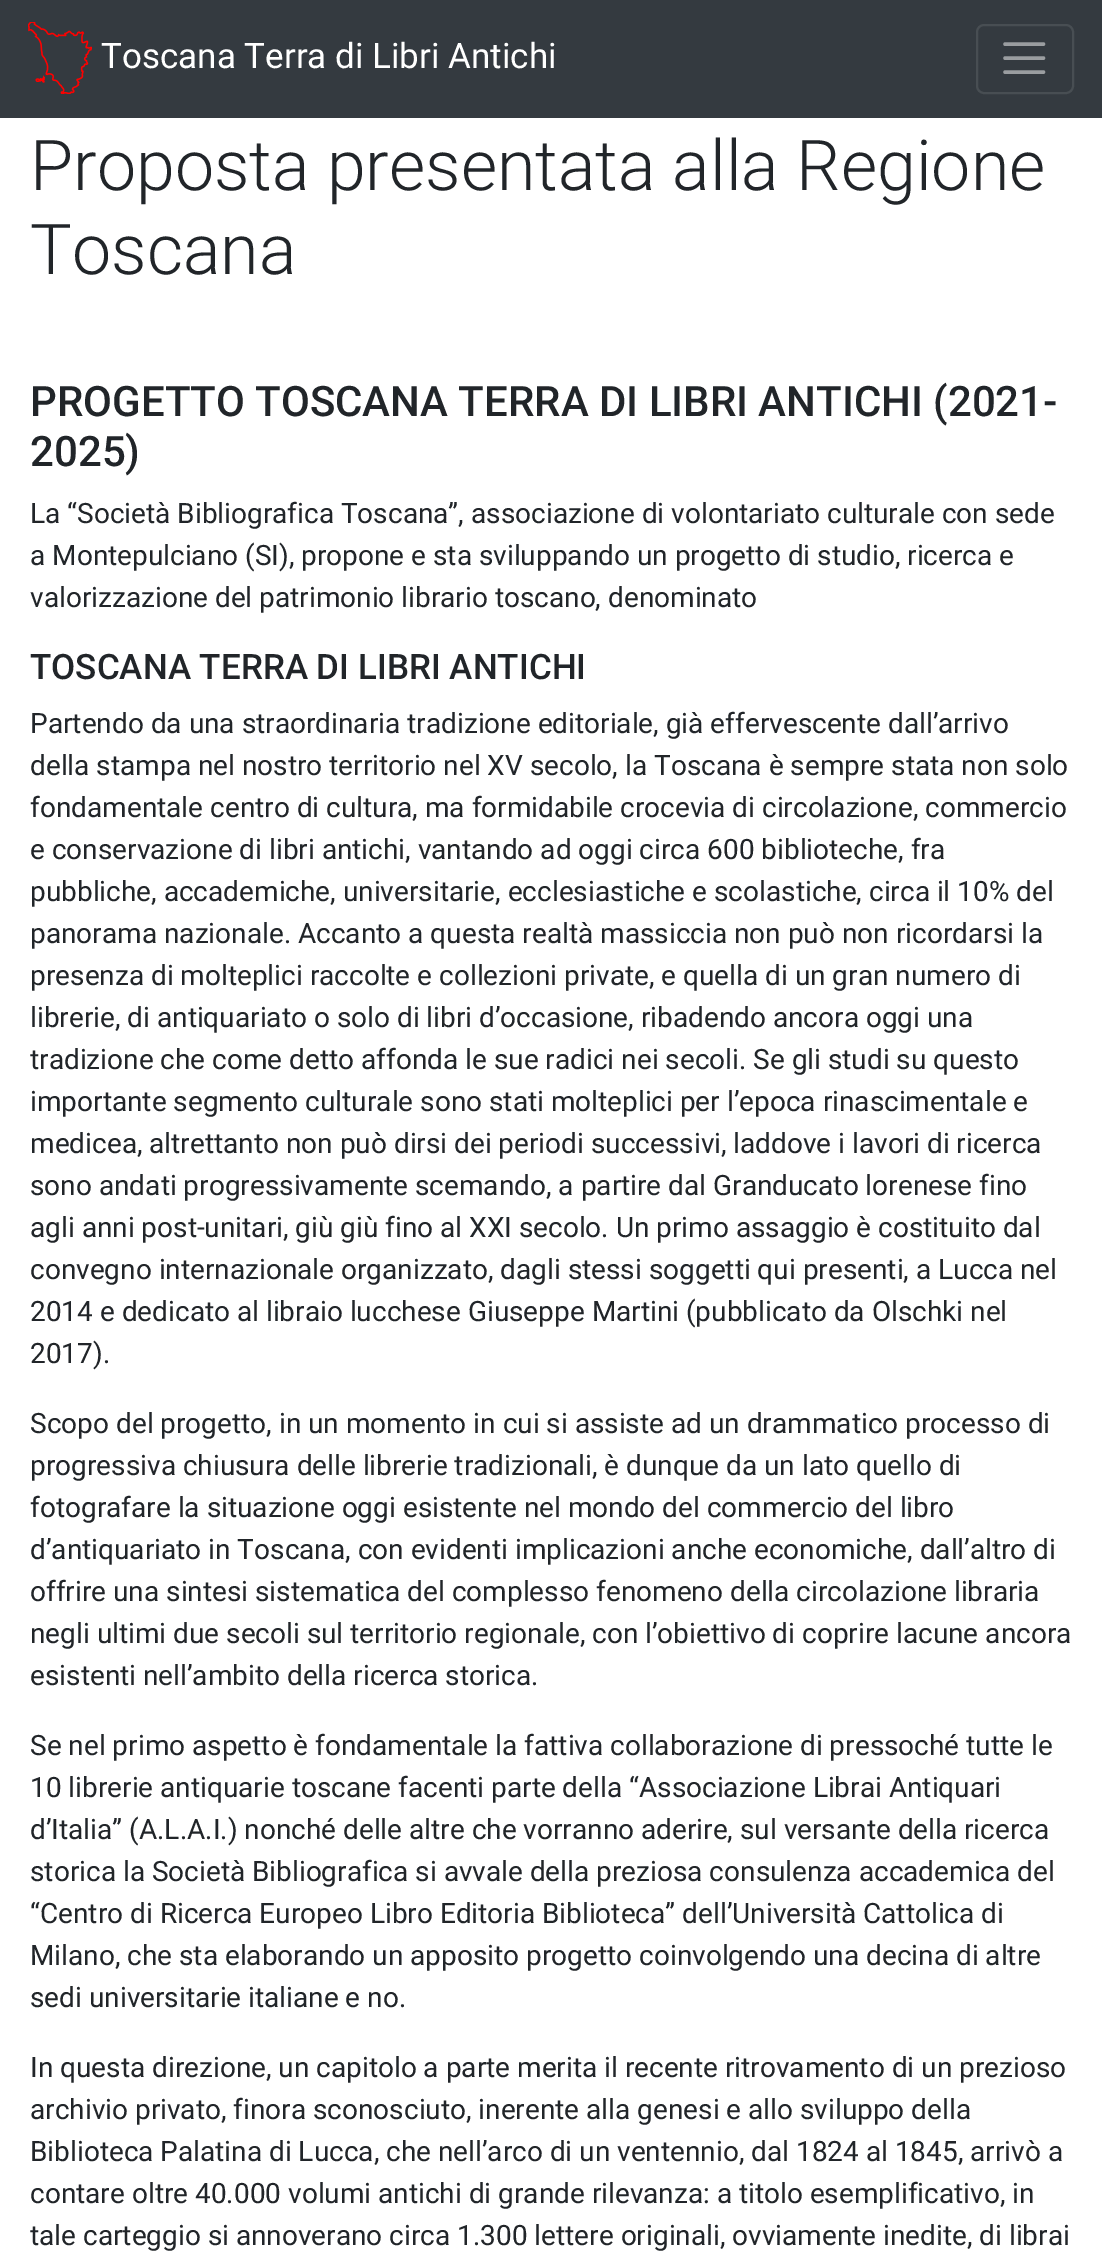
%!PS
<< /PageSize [1102 2254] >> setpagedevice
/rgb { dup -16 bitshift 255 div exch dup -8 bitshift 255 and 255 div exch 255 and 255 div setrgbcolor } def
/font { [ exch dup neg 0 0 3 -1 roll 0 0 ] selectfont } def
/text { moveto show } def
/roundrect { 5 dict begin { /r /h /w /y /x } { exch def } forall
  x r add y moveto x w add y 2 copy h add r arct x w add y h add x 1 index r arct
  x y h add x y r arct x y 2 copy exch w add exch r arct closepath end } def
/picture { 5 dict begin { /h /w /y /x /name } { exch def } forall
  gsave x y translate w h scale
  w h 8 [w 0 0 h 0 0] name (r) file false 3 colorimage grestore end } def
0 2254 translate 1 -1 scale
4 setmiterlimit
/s1 { /Roboto-Regular 35 font 16#FFFFFF rgb } def
/s2 { /Roboto-Light 70 font 16#212529 rgb } def
/s3 { /Roboto-Medium 42 font 16#212529 rgb } def
/s4 { /Roboto-Regular 28 font 16#212529 rgb } def
/s5 { /Roboto-Medium 35 font 16#212529 rgb } def
16#FFFFFF rgb
0 0 1102 2254 rectfill
16#343A40 rgb
0 0 1102 118 rectfill
(pic1.raw) 28 22 64 72 picture
s1
(Toscana Terra di Libri Antichi) 101 68 text
16#484E53 rgb
2 setlinewidth
977 25 96 68 7 roundrect stroke
16#9A9DA0 rgb
3.5 setlinewidth
1 setlinecap
1005 44 moveto 1043.5 44 lineto 1005 58 moveto 1043.5 58 lineto 1005 72 moveto 1043.5 72 lineto stroke
s2
(Proposta presentata alla Regione) 30 190 text
(Toscana) 30 274 text
s3
(PROGETTO TOSCANA TERRA DI LIBRI ANTICHI \(2021-) 30 416 text
(2025\)) 30 466 text
s4
(La “Società Bibliografica Toscana”, associazione di volontariato culturale con sede) 30 523 text
(a Montepulciano \(SI\), propone e sta sviluppando un progetto di studio, ricerca e) 30 565 text
(valorizzazione del patrimonio librario toscano, denominato) 30 607 text
s5
(TOSCANA TERRA DI LIBRI ANTICHI) 30 679 text
s4
(Partendo da una straordinaria tradizione editoriale, già effervescente dall’arrivo) 30 733 text
(della stampa nel nostro territorio nel XV secolo, la Toscana è sempre stata non solo) 30 775 text
(fondamentale centro di cultura, ma formidabile crocevia di circolazione, commercio) 30 817 text
(e conservazione di libri antichi, vantando ad oggi circa 600 biblioteche, fra) 30 859 text
(pubbliche, accademiche, universitarie, ecclesiastiche e scolastiche, circa il 10% del) 30 901 text
(panorama nazionale. Accanto a questa realtà massiccia non può non ricordarsi la) 30 943 text
(presenza di molteplici raccolte e collezioni private, e quella di un gran numero di) 30 985 text
(librerie, di antiquariato o solo di libri d’occasione, ribadendo ancora oggi una) 30 1027 text
(tradizione che come detto affonda le sue radici nei secoli. Se gli studi su questo) 30 1069 text
(importante segmento culturale sono stati molteplici per l’epoca rinascimentale e) 30 1111 text
(medicea, altrettanto non può dirsi dei periodi successivi, laddove i lavori di ricerca) 30 1153 text
(sono andati progressivamente scemando, a partire dal Granducato lorenese fino) 30 1195 text
(agli anni post-unitari, giù giù fino al XXI secolo. Un primo assaggio è costituito dal) 30 1237 text
(convegno internazionale organizzato, dagli stessi soggetti qui presenti, a Lucca nel) 30 1279 text
(2014 e dedicato al libraio lucchese Giuseppe Martini \(pubblicato da Olschki nel) 30 1321 text
(2017\).) 30 1363 text
(Scopo del progetto, in un momento in cui si assiste ad un drammatico processo di) 30 1433 text
(progressiva chiusura delle librerie tradizionali, è dunque da un lato quello di) 30 1475 text
(fotografare la situazione oggi esistente nel mondo del commercio del libro) 30 1517 text
(d’antiquariato in Toscana, con evidenti implicazioni anche economiche, dall’altro di) 30 1559 text
(offrire una sintesi sistematica del complesso fenomeno della circolazione libraria) 30 1601 text
(negli ultimi due secoli sul territorio regionale, con l’obiettivo di coprire lacune ancora) 30 1643 text
(esistenti nell’ambito della ricerca storica.) 30 1685 text
(Se nel primo aspetto è fondamentale la fattiva collaborazione di pressoché tutte le) 30 1755 text
(10 librerie antiquarie toscane facenti parte della “Associazione Librai Antiquari) 30 1797 text
(d’Italia” \(A.L.A.I.\) nonché delle altre che vorranno aderire, sul versante della ricerca) 30 1839 text
(storica la Società Bibliografica si avvale della preziosa consulenza accademica del) 30 1881 text
(“Centro di Ricerca Europeo Libro Editoria Biblioteca” dell’Università Cattolica di) 30 1923 text
(Milano, che sta elaborando un apposito progetto coinvolgendo una decina di altre) 30 1965 text
(sedi universitarie italiane e no.) 30 2007 text
(In questa direzione, un capitolo a parte merita il recente ritrovamento di un prezioso) 30 2077 text
(archivio privato, finora sconosciuto, inerente alla genesi e allo sviluppo della) 30 2119 text
(Biblioteca Palatina di Lucca, che nell’arco di un ventennio, dal 1824 al 1845, arrivò a) 30 2161 text
(contare oltre 40.000 volumi antichi di grande rilevanza: a titolo esemplificativo, in) 30 2203 text
(tale carteggio si annoverano circa 1.300 lettere originali, ovviamente inedite, di librai) 30 2245 text
showpage
